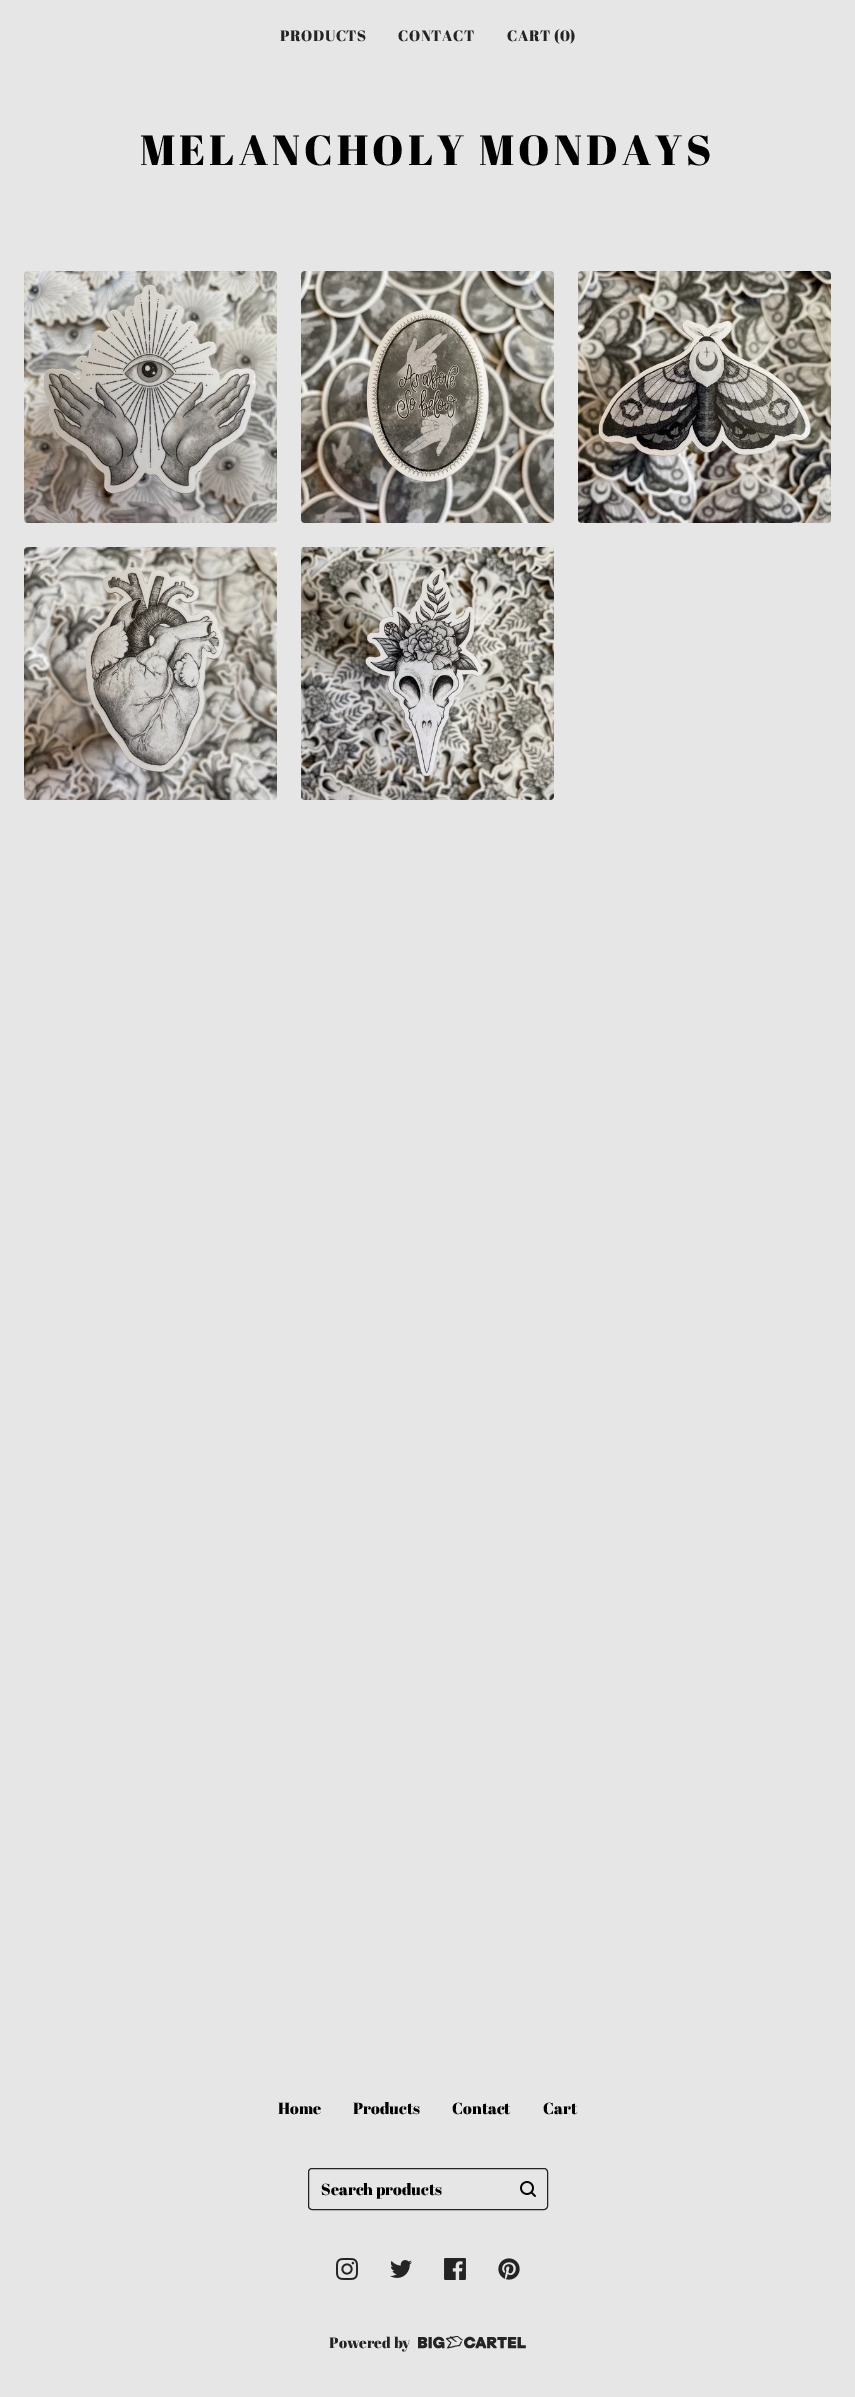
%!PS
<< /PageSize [855 2397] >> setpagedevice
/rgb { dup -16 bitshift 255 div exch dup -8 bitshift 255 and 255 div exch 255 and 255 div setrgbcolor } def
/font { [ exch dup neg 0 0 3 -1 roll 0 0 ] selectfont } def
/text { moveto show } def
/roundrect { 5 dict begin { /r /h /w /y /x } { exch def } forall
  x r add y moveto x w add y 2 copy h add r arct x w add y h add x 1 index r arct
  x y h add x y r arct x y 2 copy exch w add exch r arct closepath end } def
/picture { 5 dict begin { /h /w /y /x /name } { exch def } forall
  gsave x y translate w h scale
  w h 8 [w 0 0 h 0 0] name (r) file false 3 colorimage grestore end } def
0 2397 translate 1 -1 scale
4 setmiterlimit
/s1 { /AbrilFatface-Regular 16 font 16#000000 rgb } def
/s2 { /AbrilFatface-Regular 15 font 16#242424 rgb } def
16#E6E6E6 rgb
0 0 855 2397 rectfill
/AbrilFatface-Regular 15 font
16#242424 rgb
280 41 moveto 0.5 0 (PRODUCTS) ashow
398 41 moveto 0.5 0 (CONTACT) ashow
507 41 moveto 0.5 0 (CART \(0\)) ashow
/AbrilFatface-Regular 42 font
16#000000 rgb
140 165 moveto 4 0 (MELANCHOLY MONDAYS) ashow
(pic1.raw) 24 271 253 252 picture
(pic2.raw) 301 271 253 252 picture
(pic3.raw) 578 271 253 252 picture
(pic4.raw) 24 547 253 253 picture
(pic5.raw) 301 547 253 253 picture
s1
(Home) 278 2114 text
(Products) 353 2114 text
(Contact) 452 2114 text
(Cart) 543 2114 text
16#242424 rgb
308.5 2168.5 239 41 3.5 roundrect stroke
s1
(Search products) 321 2195 text
(pic6.raw) 520 2181 16 16 picture
(pic7.raw) 336 2258 22 22 picture
(pic8.raw) 390 2260 22 18 picture
(pic9.raw) 444 2258 22 22 picture
(pic10.raw) 498 2258 22 22 picture
s2
(Powered by) 329 2348 text
(pic11.raw) 418 2336 108 13 picture
showpage
